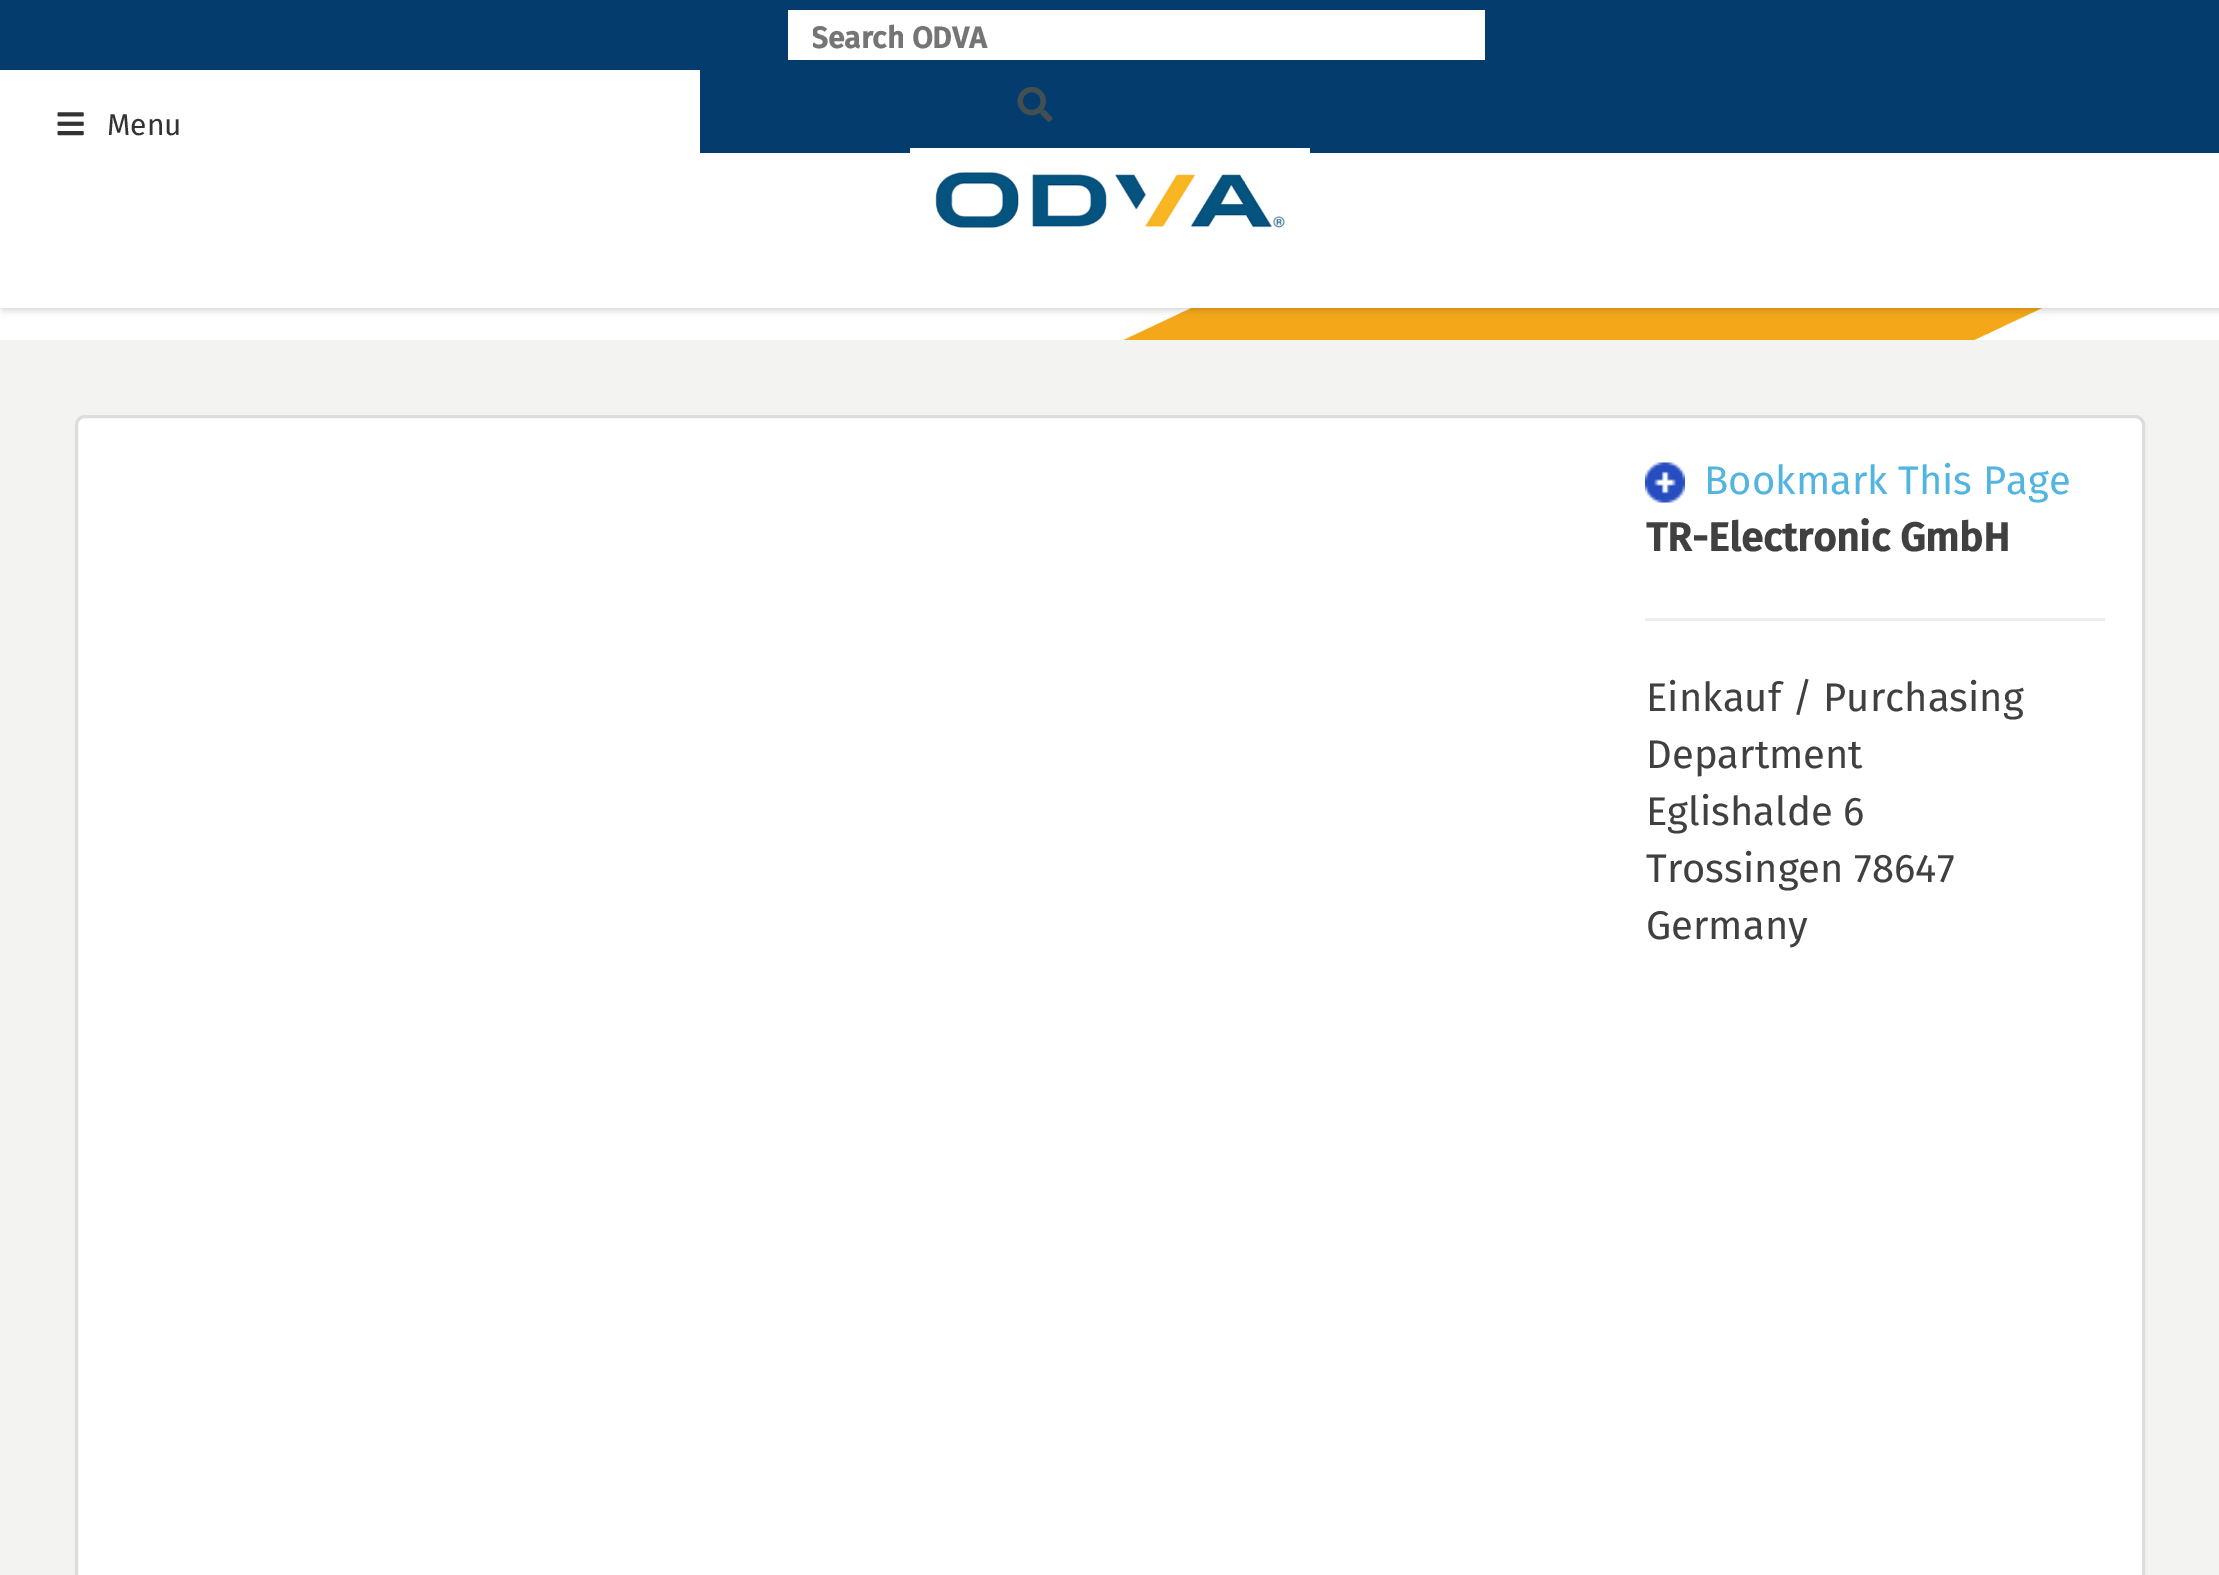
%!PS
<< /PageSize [2219 1575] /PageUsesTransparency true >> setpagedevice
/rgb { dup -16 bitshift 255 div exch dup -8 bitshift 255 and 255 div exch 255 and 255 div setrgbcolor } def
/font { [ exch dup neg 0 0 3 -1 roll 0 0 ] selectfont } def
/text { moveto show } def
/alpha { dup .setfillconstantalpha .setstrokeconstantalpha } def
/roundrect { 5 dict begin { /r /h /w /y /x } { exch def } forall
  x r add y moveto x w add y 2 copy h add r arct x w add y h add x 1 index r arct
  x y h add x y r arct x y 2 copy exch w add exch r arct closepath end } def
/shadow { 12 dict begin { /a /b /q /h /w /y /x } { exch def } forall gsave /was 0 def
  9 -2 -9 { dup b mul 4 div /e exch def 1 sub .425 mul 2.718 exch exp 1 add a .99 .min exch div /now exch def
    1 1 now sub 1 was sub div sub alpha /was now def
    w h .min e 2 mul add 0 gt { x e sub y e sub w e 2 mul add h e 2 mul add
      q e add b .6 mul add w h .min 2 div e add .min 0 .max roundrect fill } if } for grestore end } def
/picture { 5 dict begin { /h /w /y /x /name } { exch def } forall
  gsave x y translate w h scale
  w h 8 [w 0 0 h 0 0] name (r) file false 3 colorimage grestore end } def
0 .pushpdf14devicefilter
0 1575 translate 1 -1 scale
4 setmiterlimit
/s1 { /FiraSans-Bold 30 font 16#757575 rgb } def
/s2 { /FiraSans-Regular 30 font 16#333333 rgb } def
/s3 { /FiraSans-Regular 40 font 16#51B5E0 rgb } def
/s4 { /FiraSans-Bold 40 font 16#404040 rgb } def
/s5 { /FiraSans-Regular 40 font 16#404040 rgb } def
16#FFFFFF rgb
0 0 2219 1575 rectfill
(pic4.raw) 1123 308 920 32 picture
16#000000 rgb
3 3 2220 307 0 4 0.18 shadow
16#FFFFFF rgb
0 153 2219 155 rectfill
16#053C6E rgb
0 0 2219 153 rectfill
16#FFFFFF rgb
788 10 697 50 rectfill
gsave
813 20 387 35 rectclip
s1
(Search ODVA) 811 48 text
grestore
(pic1.raw) 1017 86 36 36 picture
0 70 700 83 rectfill
(pic2.raw) 57 112 27 24 picture
s2
(Menu) 107 135 text
16#FFFFFF rgb
910 148 400 5 rectfill
(pic3.raw) 935 172 350 56 picture
16#F3F3F1 rgb
0 340 2219 1235 rectfill
16#FFFFFF rgb
76.5 416.5 2067 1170 8.5 roundrect gsave fill grestore
16#DDDDDD rgb
3 setlinewidth
stroke
(pic5.raw) 1645 462 40 41 picture
s3
(Bookmark This Page) 1704 494 text
s4
(TR-Electronic GmbH) 1646 551 text
16#EEEEEE rgb
1645 618 460 3 rectfill
s5
(Einkauf / Purchasing) 1646 711 text
(Department) 1646 768 text
(Eglishalde 6) 1646 825 text
(Trossingen 78647) 1646 882 text
(Germany) 1646 939 text
.poppdf14devicefilter showpage
